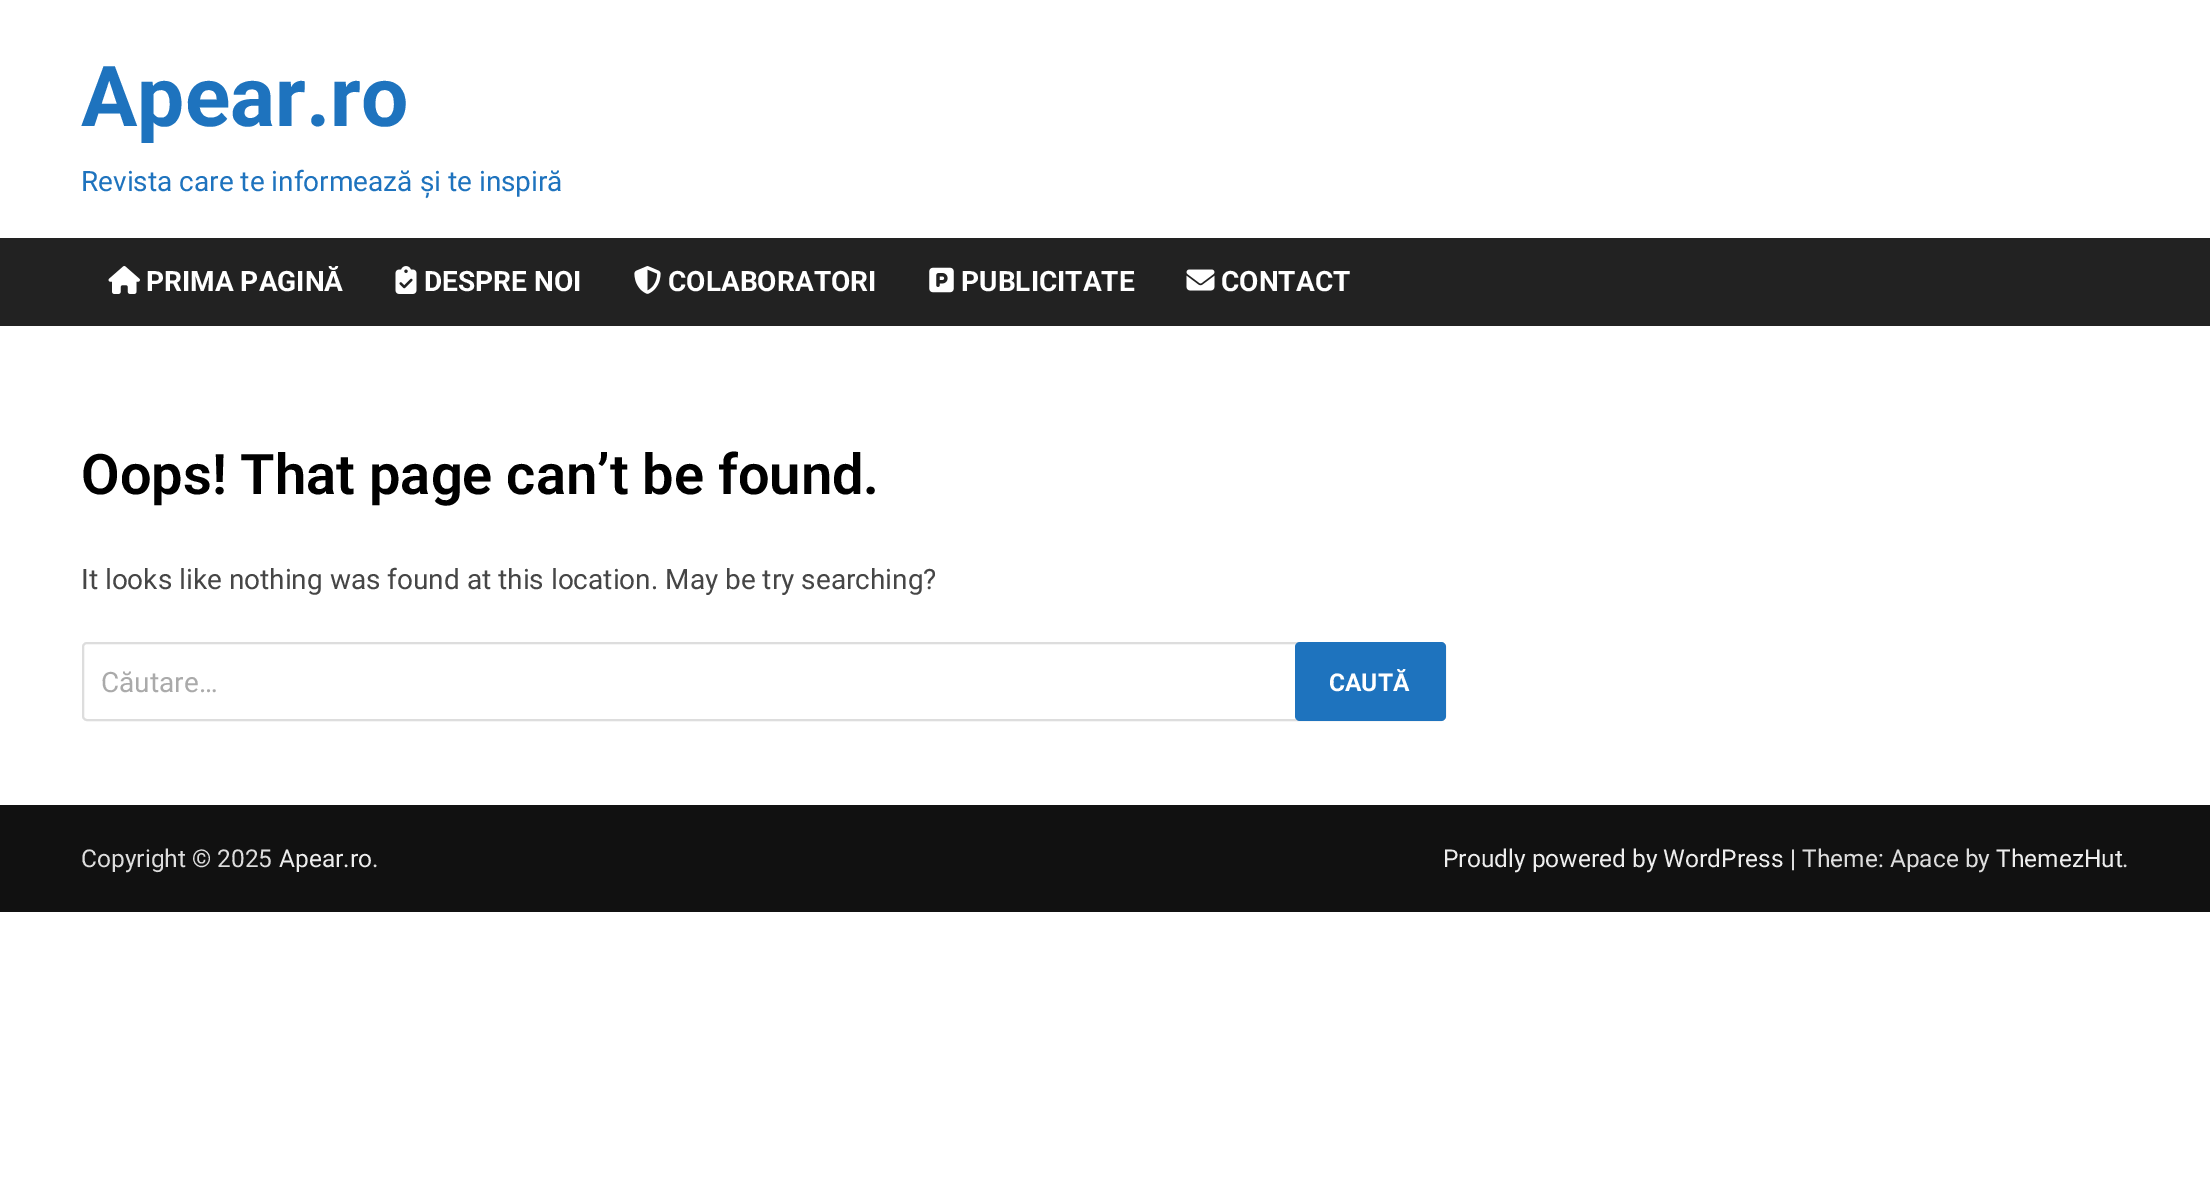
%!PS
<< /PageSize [2210 1200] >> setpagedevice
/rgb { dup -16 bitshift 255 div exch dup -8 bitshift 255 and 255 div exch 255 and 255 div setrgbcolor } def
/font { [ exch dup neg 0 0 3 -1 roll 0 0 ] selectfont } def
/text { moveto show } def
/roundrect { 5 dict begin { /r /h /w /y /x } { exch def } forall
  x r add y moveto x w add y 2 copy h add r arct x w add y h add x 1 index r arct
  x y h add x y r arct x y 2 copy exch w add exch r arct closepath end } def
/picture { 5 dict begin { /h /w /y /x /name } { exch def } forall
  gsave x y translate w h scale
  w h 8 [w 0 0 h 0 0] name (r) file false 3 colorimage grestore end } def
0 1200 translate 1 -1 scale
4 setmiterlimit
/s1 { /Roboto-Bold 84 font 16#1E73BE rgb } def
/s2 { /Roboto-Regular 28 font 16#1E73BE rgb } def
/s3 { /Roboto-Bold 28 font 16#FFFFFF rgb } def
/s4 { /Roboto-SemiBold 56 font 16#000000 rgb } def
/s5 { /Roboto-Regular 28 font 16#464646 rgb } def
/s6 { /Roboto-Regular 28 font 16#AAAAAA rgb } def
/s7 { /Roboto-Bold 24.5 font 16#FFFFFF rgb } def
/s8 { /Roboto-Regular 24.5 font 16#DDDDDD rgb } def
/s9 { /Roboto-Regular 24.5 font 16#EEEEEE rgb } def
16#FFFFFF rgb
0 0 2210 1200 rectfill
s1
(Apear.ro) 81 126 text
s2
(Revista care te informează și te inspiră) 81 191 text
16#222222 rgb
0 238 2210 88 rectfill
(pic1.raw) 108 266 32 28 picture
s3
(PRIMA PAGINĂ) 146 291 text
(pic2.raw) 395 266 22 28 picture
(DESPRE NOI) 424 291 text
(pic3.raw) 634 266 27 28 picture
(COLABORATORI) 668 291 text
(pic4.raw) 929 267 25 26 picture
(PUBLICITATE) 961 291 text
(pic5.raw) 1186 269 29 22 picture
(CONTACT) 1221 291 text
s4
(Oops! That page can’t be found.) 81 494 text
s5
(It looks like nothing was found at this location. May be try searching?) 81 589 text
16#DDDDDD rgb
2 setlinewidth
83 643 1362 77 4 roundrect stroke
s6
(Căutare…) 101 692 text
16#1E73BE rgb
1295 642 151 79 5 roundrect fill
s7
(CAUTĂ) 1329 691 text
16#111111 rgb
0 805 2210 107 rectfill
s8
(Copyright © 2025) 81 867 text
s9
(Apear.ro) 279 867 text
s8
(.) 372 867 text
s9
(Proudly powered by WordPress) 1443 867 text
s8
(| Theme: Apace by) 1790 867 text
s9
(ThemezHut) 1996 867 text
s8
(.) 2122 867 text
showpage
